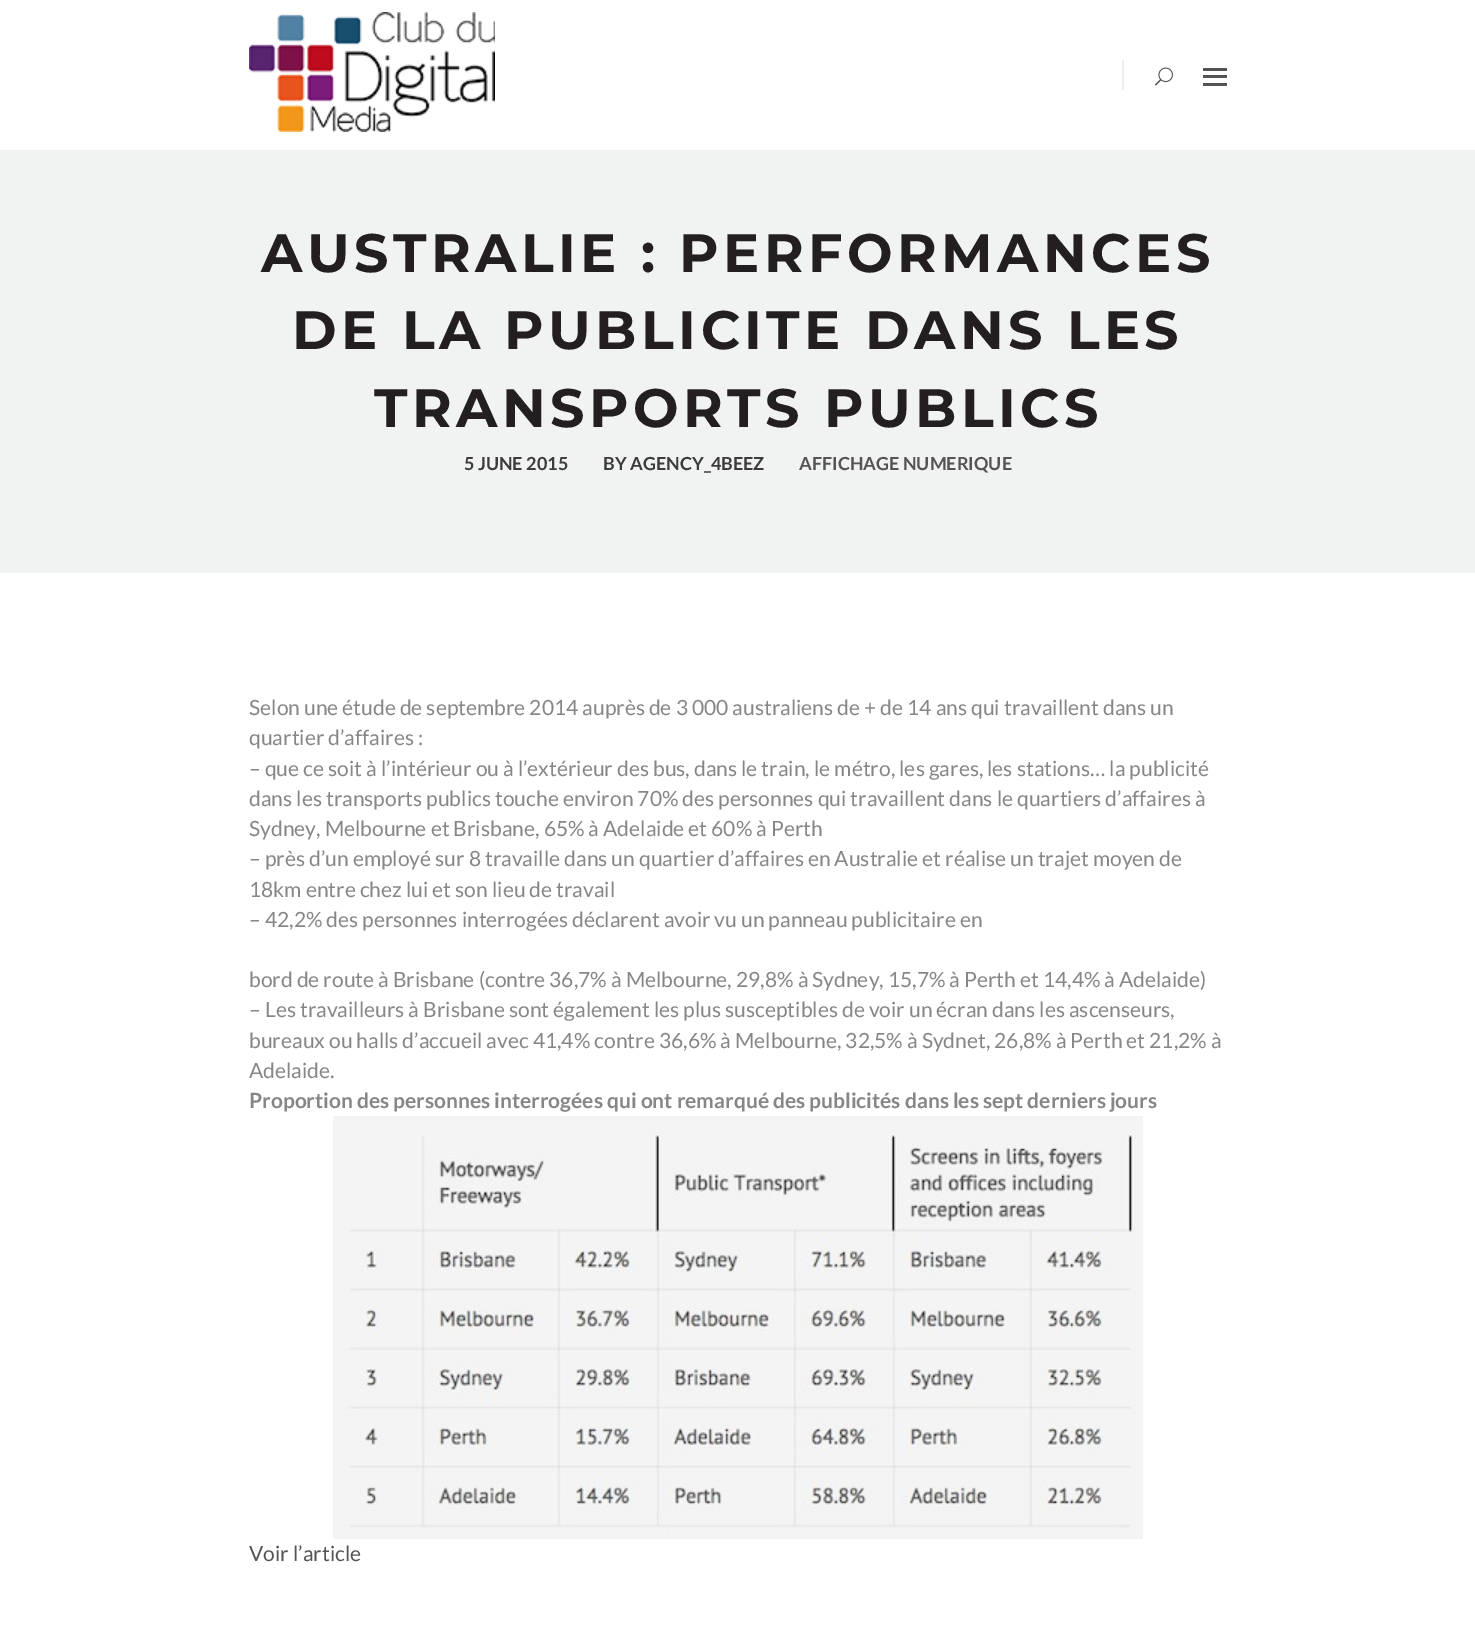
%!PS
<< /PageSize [1475 1645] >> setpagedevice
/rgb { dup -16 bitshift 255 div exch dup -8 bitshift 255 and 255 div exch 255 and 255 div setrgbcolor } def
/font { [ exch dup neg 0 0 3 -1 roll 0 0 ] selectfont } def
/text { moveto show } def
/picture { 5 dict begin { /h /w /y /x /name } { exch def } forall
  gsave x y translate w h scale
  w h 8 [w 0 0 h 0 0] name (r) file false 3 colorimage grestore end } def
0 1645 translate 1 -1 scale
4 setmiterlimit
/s1 { /Lato-Bold 18 font 16#3C3C3B rgb } def
/s2 { /Lato-Bold 18 font 16#545452 rgb } def
/s3 { /Lato-Regular 21 font 16#868686 rgb } def
/s4 { /Lato-Bold 21 font 16#868686 rgb } def
/s5 { /Lato-Regular 21 font 16#545452 rgb } def
16#FFFFFF rgb
0 0 1475 1645 rectfill
(pic1.raw) 249 12 246 120 picture
16#EEEEEE rgb
1122 60 2 30 rectfill
(pic2.raw) 1155 67 18 19 picture
16#545452 rgb
1203 75 24 3 rectfill
1203 68 24 3 rectfill
1203 83 24 3 rectfill
16#F1F2F2 rgb
0 150 1475 423 rectfill
/Montserrat-Bold 54 font
16#231F20 rgb
261 272 moveto 4.5 0 (AUSTRALIE : PERFORMANCES) ashow
292 349 moveto 4.5 0 (DE LA PUBLICITE DANS LES) ashow
374 427 moveto 4.5 0 (TRANSPORTS PUBLICS) ashow
s1
(5 JUNE 2015) 464 470 text
(BY AGENCY_4BEEZ) 603 470 text
s2
(AFFICHAGE NUMERIQUE) 799 470 text
s3
(Selon une étude de septembre 2014 auprès de 3 000 australiens de + de 14 ans qui travaillent dans un) 249 715 text
(quartier d’affaires :) 249 745 text
(– que ce soit à l’intérieur ou à l’extérieur des bus, dans le train, le métro, les gares, les stations… la publicité) 249 776 text
(dans les transports publics touche environ 70% des personnes qui travaillent dans le quartiers d’affaires à) 249 806 text
(Sydney, Melbourne et Brisbane, 65% à Adelaide et 60% à Perth) 249 836 text
(– près d’un employé sur 8 travaille dans un quartier d’affaires en Australie et réalise un trajet moyen de) 249 866 text
(18km entre chez lui et son lieu de travail) 249 897 text
(– 42,2% des personnes interrogées déclarent avoir vu un panneau publicitaire en) 249 927 text
(bord de route à Brisbane \(contre 36,7% à Melbourne, 29,8% à Sydney, 15,7% à Perth et 14,4% à Adelaide\)) 249 987 text
(– Les travailleurs à Brisbane sont également les plus susceptibles de voir un écran dans les ascenseurs,) 249 1017 text
(bureaux ou halls d’accueil avec 41,4% contre 36,6% à Melbourne, 32,5% à Sydnet, 26,8% à Perth et 21,2% à) 249 1048 text
(Adelaide.) 249 1078 text
s4
(Proportion des personnes interrogées qui ont remarqué des publicités dans les sept derniers jours) 249 1108 text
(pic3.raw) 333 1116 810 423 picture
s5
(Voir l’article) 249 1561 text
showpage
